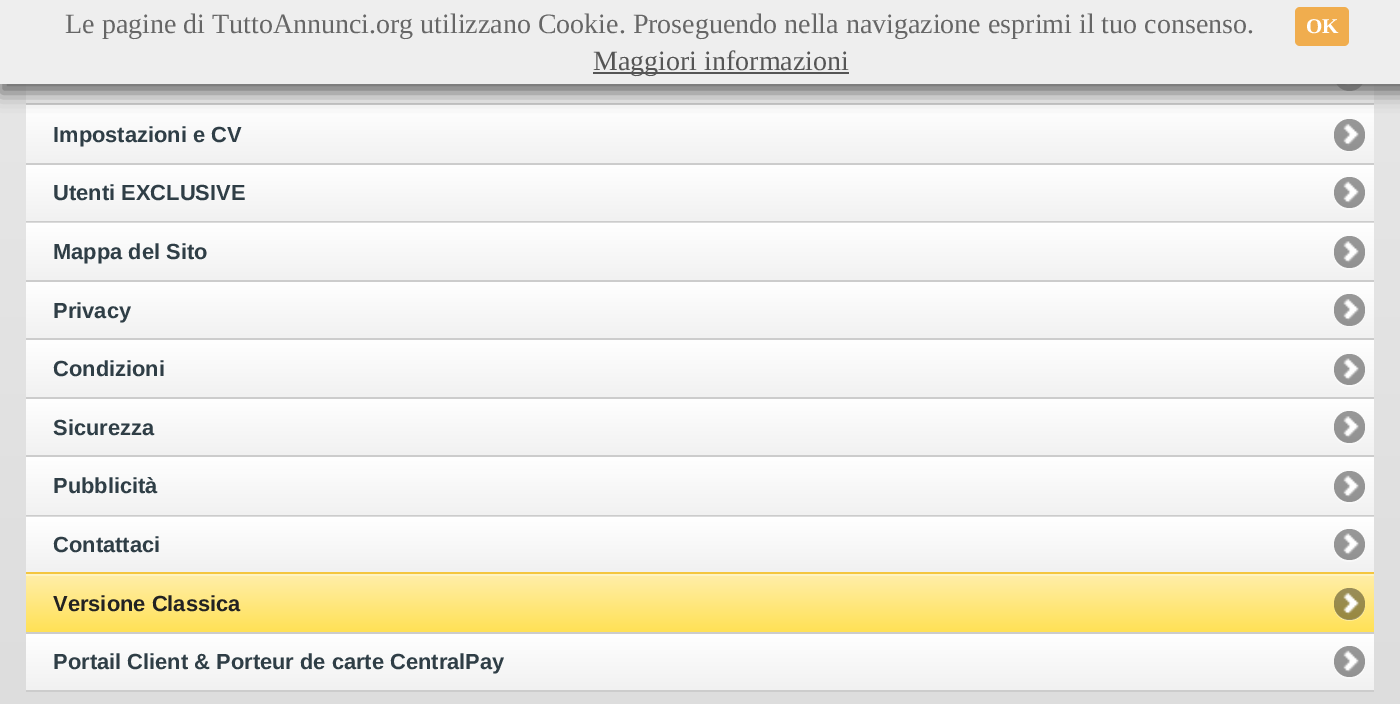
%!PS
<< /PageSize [1400 704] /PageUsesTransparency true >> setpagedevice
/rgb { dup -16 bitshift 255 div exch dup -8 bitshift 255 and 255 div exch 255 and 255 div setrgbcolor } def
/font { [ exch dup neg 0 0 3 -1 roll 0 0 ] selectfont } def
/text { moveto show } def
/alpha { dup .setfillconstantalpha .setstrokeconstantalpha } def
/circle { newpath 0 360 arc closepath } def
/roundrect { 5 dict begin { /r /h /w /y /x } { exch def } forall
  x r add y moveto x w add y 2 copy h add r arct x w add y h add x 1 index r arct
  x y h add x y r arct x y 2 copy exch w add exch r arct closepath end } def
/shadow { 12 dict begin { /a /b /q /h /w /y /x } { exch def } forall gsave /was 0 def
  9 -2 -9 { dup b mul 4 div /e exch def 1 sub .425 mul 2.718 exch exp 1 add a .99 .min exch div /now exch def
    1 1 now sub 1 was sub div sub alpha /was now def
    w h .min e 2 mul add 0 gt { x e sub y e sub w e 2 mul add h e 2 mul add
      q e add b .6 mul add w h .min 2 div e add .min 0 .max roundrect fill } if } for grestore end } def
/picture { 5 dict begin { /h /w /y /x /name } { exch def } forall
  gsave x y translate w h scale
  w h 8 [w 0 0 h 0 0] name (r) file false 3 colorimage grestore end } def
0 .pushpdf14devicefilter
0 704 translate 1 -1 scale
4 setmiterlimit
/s1 { /LiberationSerif-Regular 28 font 16#666666 rgb } def
/s2 { /LiberationSerif-Bold 21 font 16#FFFFFF rgb } def
/s3 { /LiberationSerif-Regular 28 font 16#555555 rgb } def
/s4 { /LiberationSans-Bold 21.9 font 16#2F3E46 rgb } def
/s5 { /LiberationSans-Bold 21.9 font 16#222222 rgb } def
16#FFFFFF rgb
0 0 1400 704 rectfill
gsave 0 84 moveto 1400 84 lineto 1400 704 lineto 0 704 lineto closepath clip newpath
<< /ShadingType 2 /ColorSpace /DeviceRGB /Coords [700 -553 700 704] /Extend [true true] /Function << /FunctionType 2 /Domain [0 1] /C0 [0.941 0.941 0.941] /C1 [0.867 0.867 0.867] /N 1 >> >> shfill grestore
gsave 26 84 moveto 1374 84 lineto 1374 103 lineto 26 103 lineto closepath clip newpath
<< /ShadingType 2 /ColorSpace /DeviceRGB /Coords [700 47 700 103] /Extend [true true] /Function << /FunctionType 2 /Domain [0 1] /C0 [1 1 1] /C1 [0.945 0.945 0.945] /N 1 >> >> shfill grestore
0.4 alpha
1334 80 moveto 1337 99 1366 96.5 1365 76 curveto 1364.5 93.5 1339 96.5 1334 80 curveto closepath fill
16#000000 rgb
1349.5 75.5 15.5 circle fill
1 alpha
(pic1.raw) 1345 84 6 2 picture
gsave 26 105 moveto 1374 105 lineto 1374 163 lineto 26 163 lineto closepath clip newpath
<< /ShadingType 2 /ColorSpace /DeviceRGB /Coords [700 105 700 163] /Extend [true true] /Function << /FunctionType 2 /Domain [0 1] /C0 [1 1 1] /C1 [0.945 0.945 0.945] /N 1 >> >> shfill grestore
16#CCCCCC rgb
26 103 1348 2 rectfill
0.4 alpha
16#FFFFFF rgb
1334.5 140 moveto 1338.5 158 1366 154.5 1365 135.5 curveto 1364 152.5 1340 156 1334.5 140 curveto closepath fill
16#000000 rgb
1334 119 31 32 15.5 roundrect fill
1 alpha
16#666666 rgb
0 9 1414 84 0 9 1 shadow
16#EEEEEE rgb
0 0 1400 84 rectfill
s1
(Le pagine di TuttoAnnunci.org utilizzano Cookie. Proseguendo nella navigazione esprimi il tuo consenso.) 65 33 text
16#F0AD4E rgb
1295 7 54 39 5 roundrect fill
s2
(OK) 1306 33 text
16#555555 rgb
593 72 256 2 rectfill
s3
(Maggiori informazioni) 593 70 text
s4
(Impostazioni e CV) 53 142 text
(pic2.raw) 1343 123 16 23 picture
gsave 26 165 moveto 1374 165 lineto 1374 221 lineto 26 221 lineto closepath clip newpath
<< /ShadingType 2 /ColorSpace /DeviceRGB /Coords [700 164 700 221] /Extend [true true] /Function << /FunctionType 2 /Domain [0 1] /C0 [1 1 1] /C1 [0.945 0.945 0.945] /N 1 >> >> shfill grestore
16#CCCCCC rgb
26 163 1348 2 rectfill
s4
(Utenti EXCLUSIVE) 53 200 text
0.4 alpha
16#FFFFFF rgb
1334.5 197.5 moveto 1338 216 1366 213 1365 193.5 curveto 1364 210.5 1339.5 213.5 1334.5 197.5 curveto closepath fill
16#000000 rgb
1349.5 192.5 15.5 circle fill
1 alpha
(pic3.raw) 1343 181 16 22 picture
gsave 26 224 moveto 1374 224 lineto 1374 280 lineto 26 280 lineto closepath clip newpath
<< /ShadingType 2 /ColorSpace /DeviceRGB /Coords [700 222 700 280] /Extend [true true] /Function << /FunctionType 2 /Domain [0 1] /C0 [1 1 1] /C1 [0.945 0.945 0.945] /N 1 >> >> shfill grestore
gsave 26 223 moveto 1374 223 lineto 1374 224 lineto 26 224 lineto closepath clip newpath
<< /ShadingType 2 /ColorSpace /DeviceRGB /Coords [700 222 700 280] /Extend [true true] /Function << /FunctionType 2 /Domain [0 1] /C0 [1 1 1] /C1 [0.961 0.961 0.961] /N 1 >> >> shfill grestore
16#CCCCCC rgb
26 221 1348 1 rectfill
16#DBDBDB rgb
26 222 1348 1 rectfill
s4
(Mappa del Sito) 53 259 text
16#F9F9F9 rgb
1334 256.5 moveto 1336.5 275.5 1366 274 1365 253 curveto 1364 270.5 1339 273 1334 256.5 curveto closepath fill
0.4 alpha
16#000000 rgb
1334 236 31 32 15.5 roundrect fill
1 alpha
(pic4.raw) 1343 241 16 22 picture
gsave 26 282 moveto 1374 282 lineto 1374 338 lineto 26 338 lineto closepath clip newpath
<< /ShadingType 2 /ColorSpace /DeviceRGB /Coords [700 282 700 338] /Extend [true true] /Function << /FunctionType 2 /Domain [0 1] /C0 [1 1 1] /C1 [0.945 0.945 0.945] /N 1 >> >> shfill grestore
16#CCCCCC rgb
26 280 1348 2 rectfill
s4
(Privacy) 53 318 text
0.4 alpha
16#FFFFFF rgb
1334.5 315 moveto 1338.5 333 1366 329.5 1365 310.5 curveto 1364 327.5 1340 331 1334.5 315 curveto closepath fill
16#000000 rgb
1334 294 31 32 15.5 roundrect fill
1 alpha
(pic5.raw) 1343 298 16 23 picture
gsave 26 340 moveto 1374 340 lineto 1374 397 lineto 26 397 lineto closepath clip newpath
<< /ShadingType 2 /ColorSpace /DeviceRGB /Coords [700 339 700 397] /Extend [true true] /Function << /FunctionType 2 /Domain [0 1] /C0 [1 1 1] /C1 [0.945 0.945 0.945] /N 1 >> >> shfill grestore
16#CCCCCC rgb
26 338 1348 2 rectfill
s4
(Condizioni) 53 376 text
16#F9F9F9 rgb
1334 374 moveto 1337 393 1366 390.5 1365 370 curveto 1364.5 387.5 1339 390.5 1334 374 curveto closepath fill
0.4 alpha
16#000000 rgb
1349.5 369.5 15.5 circle fill
1 alpha
(pic6.raw) 1343 358 16 22 picture
gsave 26 399 moveto 1374 399 lineto 1374 455 lineto 26 455 lineto closepath clip newpath
<< /ShadingType 2 /ColorSpace /DeviceRGB /Coords [700 399 700 455] /Extend [true true] /Function << /FunctionType 2 /Domain [0 1] /C0 [1 1 1] /C1 [0.945 0.945 0.945] /N 1 >> >> shfill grestore
16#CCCCCC rgb
26 397 1348 2 rectfill
s4
(Sicurezza) 53 435 text
0.4 alpha
16#FFFFFF rgb
1334 431.5 moveto 1336.5 450.5 1366 449 1365 428 curveto 1364 445.5 1339 448 1334 431.5 curveto closepath fill
16#000000 rgb
1334 411 31 32 15.5 roundrect fill
1 alpha
(pic7.raw) 1343 416 16 22 picture
gsave 26 457 moveto 1374 457 lineto 1374 515 lineto 26 515 lineto closepath clip newpath
<< /ShadingType 2 /ColorSpace /DeviceRGB /Coords [700 457 700 515] /Extend [true true] /Function << /FunctionType 2 /Domain [0 1] /C0 [1 1 1] /C1 [0.945 0.945 0.945] /N 1 >> >> shfill grestore
16#CCCCCC rgb
26 455 1348 2 rectfill
s4
(Pubblicità) 53 493 text
0.4 alpha
16#FFFFFF rgb
1334.5 491.5 moveto 1338 510 1366 507 1365 487.5 curveto 1364 504.5 1339.5 507.5 1334.5 491.5 curveto closepath fill
16#000000 rgb
1349.5 486.5 15.5 circle fill
1 alpha
(pic8.raw) 1343 475 16 22 picture
gsave 26 518 moveto 1374 518 lineto 1374 572 lineto 26 572 lineto closepath clip newpath
<< /ShadingType 2 /ColorSpace /DeviceRGB /Coords [700 516 700 572] /Extend [true true] /Function << /FunctionType 2 /Domain [0 1] /C0 [1 1 1] /C1 [0.945 0.945 0.945] /N 1 >> >> shfill grestore
gsave 26 517 moveto 1374 517 lineto 1374 518 lineto 26 518 lineto closepath clip newpath
<< /ShadingType 2 /ColorSpace /DeviceRGB /Coords [700 516 700 572] /Extend [true true] /Function << /FunctionType 2 /Domain [0 1] /C0 [1 1 1] /C1 [0.961 0.961 0.961] /N 1 >> >> shfill grestore
16#CCCCCC rgb
26 515 1348 1 rectfill
16#DBDBDB rgb
26 516 1348 1 rectfill
s4
(Contattaci) 53 552 text
0.4 alpha
16#FFFFFF rgb
1334 549 moveto 1337 568 1366 565.5 1365 545 curveto 1364.5 562.5 1339 565.5 1334 549 curveto closepath fill
16#000000 rgb
1349.5 544.5 15.5 circle fill
1 alpha
(pic9.raw) 1343 533 16 22 picture
gsave 26 576 moveto 1374 576 lineto 1374 632 lineto 26 632 lineto closepath clip newpath
<< /ShadingType 2 /ColorSpace /DeviceRGB /Coords [700 574 700 632] /Extend [true true] /Function << /FunctionType 2 /Domain [0 1] /C0 [1 0.937 0.667] /C1 [1 0.882 0.333] /N 1 >> >> shfill grestore
16#F4C63F rgb
26 572 1348 2 rectfill
16#FFF4C2 rgb
26 574 1348 2 rectfill
s5
(Versione Classica) 53 611 text
0.4 alpha
16#FFFFFF rgb
1334.5 609 moveto 1338.5 627 1366 623.5 1365 604.5 curveto 1364 621.5 1340 625 1334.5 609 curveto closepath fill
16#000000 rgb
1334 588 31 32 15.5 roundrect fill
1 alpha
(pic10.raw) 1343 592 16 23 picture
gsave 26 634 moveto 1374 634 lineto 1374 690 lineto 26 690 lineto closepath clip newpath
<< /ShadingType 2 /ColorSpace /DeviceRGB /Coords [700 633 700 690] /Extend [true true] /Function << /FunctionType 2 /Domain [0 1] /C0 [1 1 1] /C1 [0.945 0.945 0.945] /N 1 >> >> shfill grestore
16#CCCCCC rgb
26 632 1348 2 rectfill
26 690 1348 2 rectfill
s4
(Portail Client & Porteur de carte CentralPay) 53 669 text
0.4 alpha
16#FFFFFF rgb
1334.5 666.5 moveto 1338 685 1366 682 1365 662.5 curveto 1364 679.5 1339.5 682.5 1334.5 666.5 curveto closepath fill
16#000000 rgb
1349.5 661.5 15.5 circle fill
1 alpha
(pic3.raw) 1343 650 16 22 picture
.poppdf14devicefilter showpage
